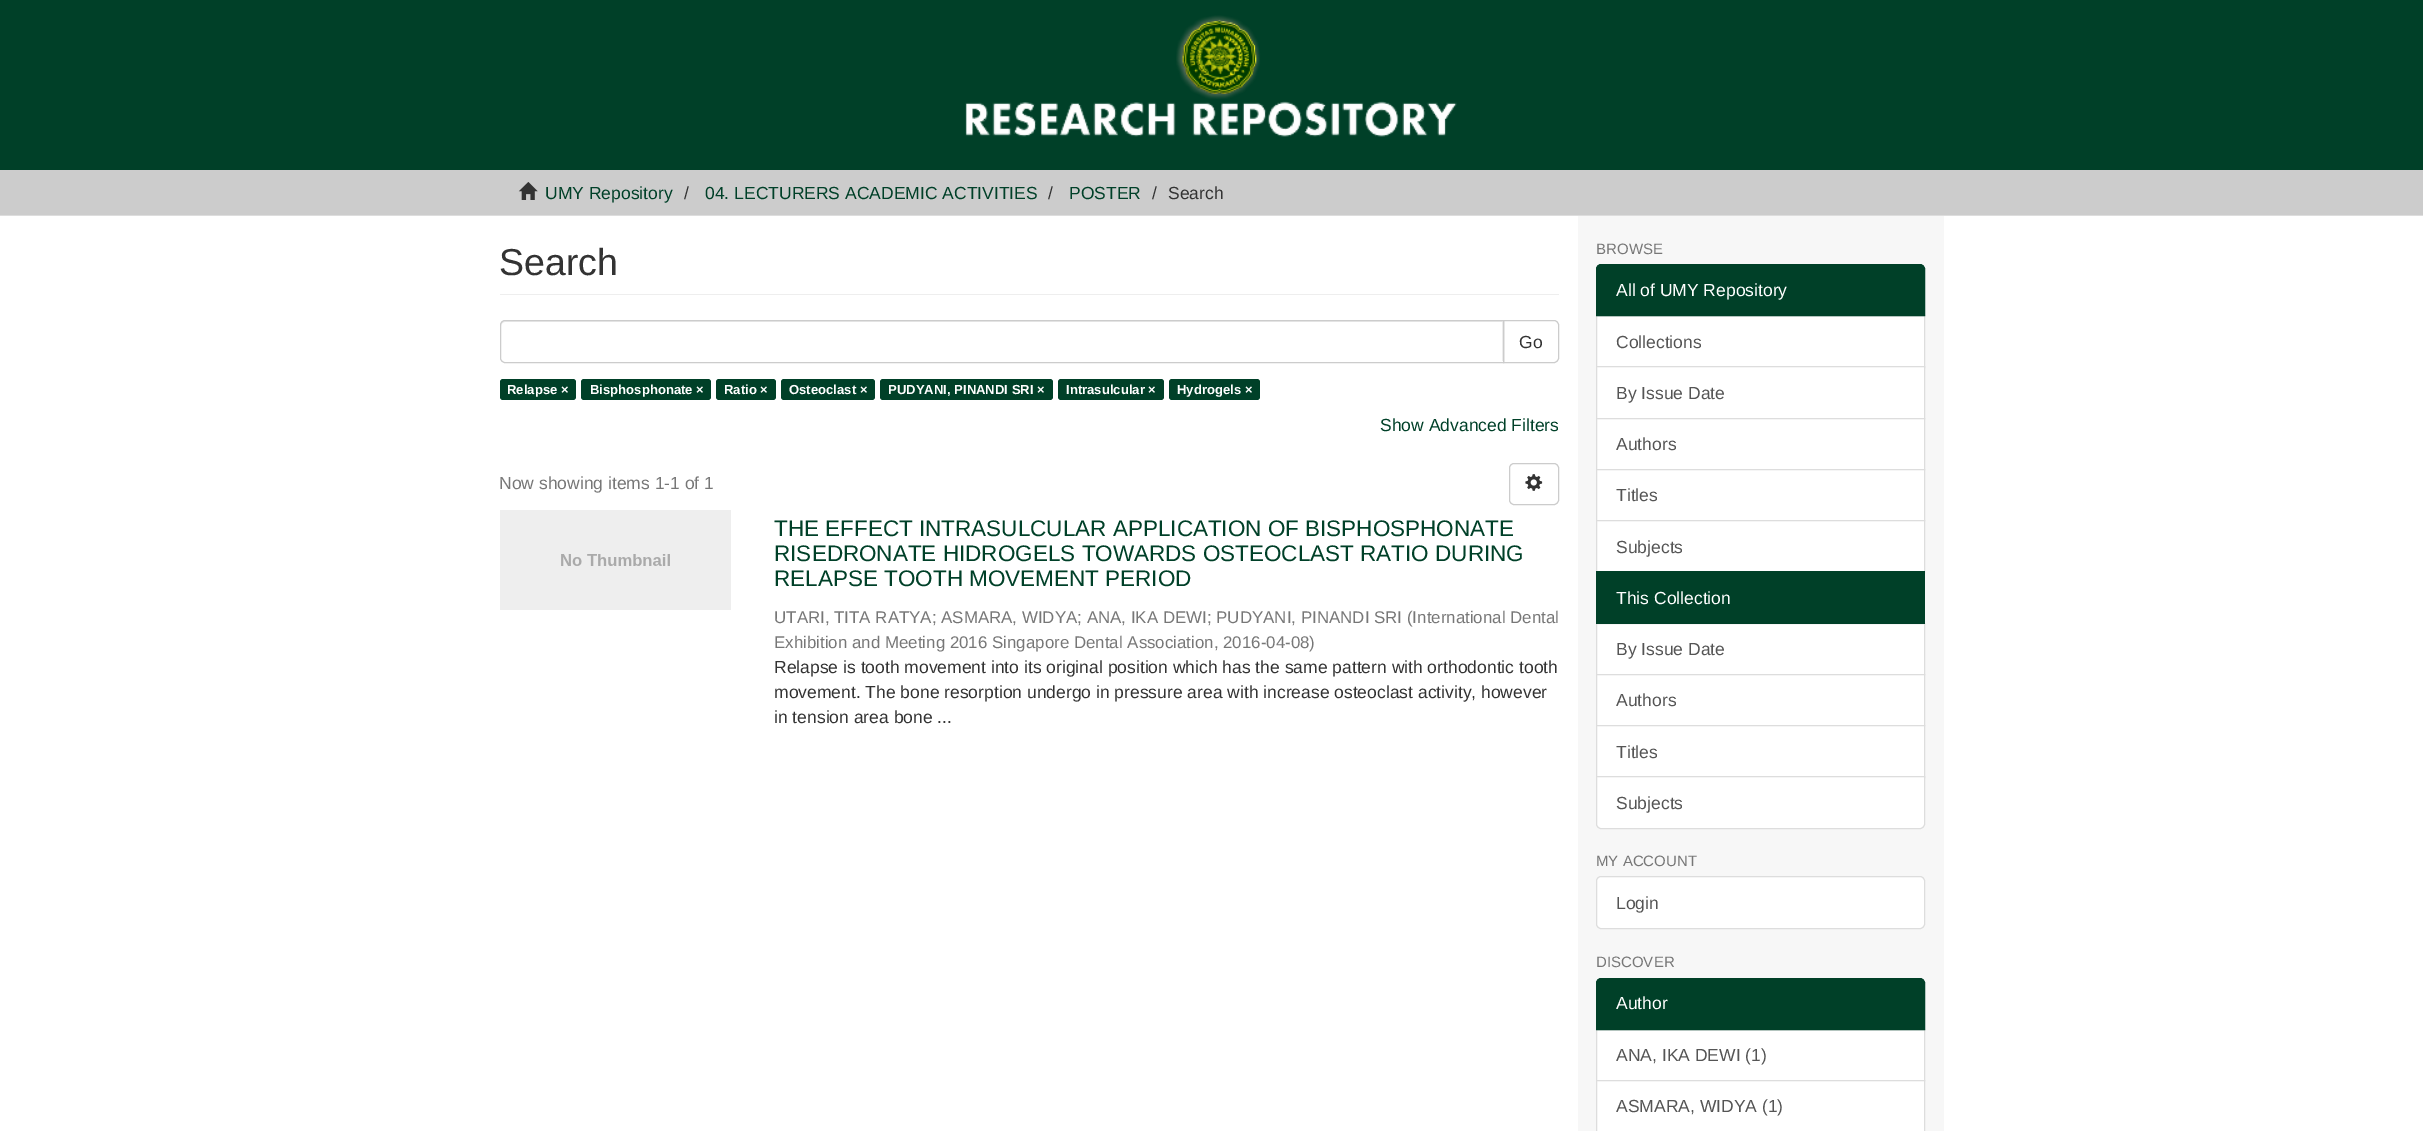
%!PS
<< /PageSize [2423 1131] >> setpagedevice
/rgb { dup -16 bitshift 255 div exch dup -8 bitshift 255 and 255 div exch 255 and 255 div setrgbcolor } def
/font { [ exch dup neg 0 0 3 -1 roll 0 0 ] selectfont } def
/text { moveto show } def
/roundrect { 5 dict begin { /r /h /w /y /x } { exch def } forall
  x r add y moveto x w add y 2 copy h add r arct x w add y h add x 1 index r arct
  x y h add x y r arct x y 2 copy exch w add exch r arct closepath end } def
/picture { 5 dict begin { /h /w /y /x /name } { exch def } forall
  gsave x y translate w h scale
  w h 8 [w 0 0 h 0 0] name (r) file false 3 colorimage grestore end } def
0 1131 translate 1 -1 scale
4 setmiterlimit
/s1 { /LiberationSans-Regular 17.5 font 16#004028 rgb } def
/s2 { /LiberationSans-Regular 17.5 font 16#333333 rgb } def
/s3 { /LiberationSans-Regular 37.5 font 16#333333 rgb } def
/s4 { /LiberationSans-Bold 13.1 font 16#FFFFFF rgb } def
/s5 { /LiberationSans-Regular 17.5 font 16#777777 rgb } def
/s6 { /LiberationSans-Regular 22.5 font 16#004028 rgb } def
/s7 { /LiberationSans-Regular 16.9 font 16#777777 rgb } def
/s8 { /LiberationSans-Regular 15 font 16#777777 rgb } def
/s9 { /LiberationSans-Regular 17.5 font 16#FFFFFF rgb } def
/s10 { /LiberationSans-Regular 17.5 font 16#555555 rgb } def
16#FFFFFF rgb
0 0 2423 1131 rectfill
16#004028 rgb
0 0 2423 170 rectfill
(pic1.raw) 965 15 492 122 picture
16#CCCCCC rgb
0 170 2423 45 rectfill
16#DDDDDD rgb
0 215 2423 1 rectfill
(pic2.raw) 518 182 20 18 picture
s1
(UMY Repository) 545 199 text
s2
(/) 684 199 text
s1
(04. LECTURERS ACADEMIC ACTIVITIES) 705 199 text
s2
(/) 1048 199 text
s1
(POSTER) 1069 199 text
s2
(/) 1152 199 text
(Search) 1168 199 text
16#F7F7F7 rgb
1578 216 366 915 rectfill
16#EEEEEE rgb
500 294 1059 1 rectfill
s3
(Search) 499 275 text
16#CCCCCC rgb
1503.5 320.5 moveto 1554 320.5 lineto 1556.5 320.5 1558.5 322.5 1558.5 325 curveto 1558.5 358 lineto 1558.5 360.5 1556.5 362.5 1554 362.5 curveto 1503.5 362.5 lineto closepath stroke
16#FFFFFF rgb
505 320 moveto 1504 320 lineto 1504 363 lineto 505 363 lineto 502 363 500 361 500 358 curveto 500 325 lineto 500 322 502 320 505 320 curveto closepath fill
16#ECECEC rgb
505 322 moveto 1502 322 lineto 1502 361 lineto 1503 361 lineto 1503 321 lineto 505 321 lineto 502 321 501 323 501 326 curveto 501 324 503 322 505 322 curveto closepath fill
16#CCCCCC rgb
505 320.5 moveto 1503.5 320.5 lineto 1503.5 362.5 lineto 505 362.5 lineto 502.5 362.5 500.5 360.5 500.5 358 curveto 500.5 325 lineto 500.5 322.5 502.5 320.5 505 320.5 curveto closepath stroke
s2
(Go) 1519 348 text
16#004028 rgb
500 379 76 21 3 roundrect fill
s4
(Relapse ×) 507 394 text
16#004028 rgb
581 379 130 21 3 roundrect fill
s4
(Bisphosphonate ×) 590 394 text
16#004028 rgb
716 379 60 21 3 roundrect fill
s4
(Ratio ×) 724 394 text
16#004028 rgb
781 379 94 21 3 roundrect fill
s4
(Osteoclast ×) 789 394 text
16#004028 rgb
880 379 173 21 3 roundrect fill
s4
(PUDYANI, PINANDI SRI ×) 888 394 text
16#004028 rgb
1058 379 106 21 3 roundrect fill
s4
(Intrasulcular ×) 1066 394 text
16#004028 rgb
1169 379 91 21 3 roundrect fill
s4
(Hydrogels ×) 1177 394 text
s1
(Show Advanced Filters) 1380 431 text
s5
(Now showing items 1-1 of 1) 499 489 text
16#CCCCCC rgb
1509.5 463.5 49 41 4.5 roundrect stroke
(pic3.raw) 1525 474 18 17 picture
(pic4.raw) 500 510 231 100 picture
s6
(THE EFFECT INTRASULCULAR APPLICATION OF BISPHOSPHONATE) 774 536 text
(RISEDRONATE HIDROGELS TOWARDS OSTEOCLAST RATIO DURING) 774 561 text
(RELAPSE TOOTH MOVEMENT PERIOD) 774 586 text
s7
(UTARI, TITA RATYA; ASMARA, WIDYA; ANA, IKA DEWI; PUDYANI, PINANDI SRI \(International Dental) 774 623 text
(Exhibition and Meeting 2016 Singapore Dental Association, 2016-04-08\)) 774 648 text
s2
(Relapse is tooth movement into its original position which has the same pattern with orthodontic tooth) 774 673 text
(movement. The bone resorption undergo in pressure area with increase osteoclast activity, however) 774 698 text
(in tension area bone ...) 774 723 text
s8
(BROWSE) 1596 254 text
16#FFFFFF rgb
1597 316 327 50 rectfill
16#DDDDDD rgb
1596.5 315.5 328 52 rectstroke
16#004028 rgb
1601 264.5 moveto 1920 264.5 lineto 1922.5 264.5 1924.5 266.5 1924.5 269 curveto 1924.5 315.5 lineto 1596.5 315.5 lineto 1596.5 269 lineto 1596.5 266.5 1598.5 264.5 1601 264.5 curveto closepath gsave fill grestore
stroke
s9
(All of UMY Repository) 1616 296 text
s10
(Collections) 1616 348 text
16#FFFFFF rgb
1596.5 366.5 moveto 1924.5 366.5 lineto 1924.5 418.5 lineto 1596.5 418.5 lineto closepath gsave fill grestore
16#DDDDDD rgb
stroke
s10
(By Issue Date) 1616 399 text
16#FFFFFF rgb
1596.5 418.5 moveto 1924.5 418.5 lineto 1924.5 469.5 lineto 1596.5 469.5 lineto closepath gsave fill grestore
16#DDDDDD rgb
stroke
s10
(Authors) 1616 450 text
16#FFFFFF rgb
1596.5 469.5 moveto 1924.5 469.5 lineto 1924.5 520.5 lineto 1596.5 520.5 lineto closepath gsave fill grestore
16#DDDDDD rgb
stroke
s10
(Titles) 1616 501 text
16#FFFFFF rgb
1597 521 327 50 rectfill
16#DDDDDD rgb
1596.5 520.5 328 52 rectstroke
s10
(Subjects) 1616 553 text
16#FFFFFF rgb
1596.5 623.5 moveto 1924.5 623.5 lineto 1924.5 674.5 lineto 1596.5 674.5 lineto closepath gsave fill grestore
16#DDDDDD rgb
stroke
16#004028 rgb
1596 571 329 53 rectfill
s9
(This Collection) 1616 604 text
s10
(By Issue Date) 1616 655 text
16#FFFFFF rgb
1596.5 674.5 moveto 1924.5 674.5 lineto 1924.5 725.5 lineto 1596.5 725.5 lineto closepath gsave fill grestore
16#DDDDDD rgb
stroke
s10
(Authors) 1616 706 text
16#FFFFFF rgb
1597 726 327 50 rectfill
16#DDDDDD rgb
1596.5 725.5 328 52 rectstroke
s10
(Titles) 1616 758 text
16#FFFFFF rgb
1596.5 776.5 moveto 1924.5 776.5 lineto 1924.5 824 lineto 1924.5 826.5 1922.5 828.5 1920 828.5 curveto 1601 828.5 lineto 1598.5 828.5 1596.5 826.5 1596.5 824 curveto closepath gsave fill grestore
16#DDDDDD rgb
stroke
s10
(Subjects) 1616 809 text
s8
(MY ACCOUNT) 1596 866 text
16#FFFFFF rgb
1596.5 876.5 328 52 4.5 roundrect gsave fill grestore
16#DDDDDD rgb
stroke
s10
(Login) 1616 909 text
s8
(DISCOVER) 1596 967 text
16#FFFFFF rgb
1596.5 1029.5 moveto 1924.5 1029.5 lineto 1924.5 1080.5 lineto 1596.5 1080.5 lineto closepath gsave fill grestore
16#DDDDDD rgb
stroke
16#004028 rgb
1601 978.5 moveto 1920 978.5 lineto 1922.5 978.5 1924.5 980.5 1924.5 983 curveto 1924.5 1029.5 lineto 1596.5 1029.5 lineto 1596.5 983 lineto 1596.5 980.5 1598.5 978.5 1601 978.5 curveto closepath gsave fill grestore
stroke
s9
(Author) 1616 1009 text
s10
(ANA, IKA DEWI \(1\)) 1616 1061 text
16#FFFFFF rgb
1596.5 1080.5 moveto 1924.5 1080.5 lineto 1924.5 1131.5 lineto 1596.5 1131.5 lineto closepath gsave fill grestore
16#DDDDDD rgb
stroke
s10
(ASMARA, WIDYA \(1\)) 1616 1112 text
showpage
